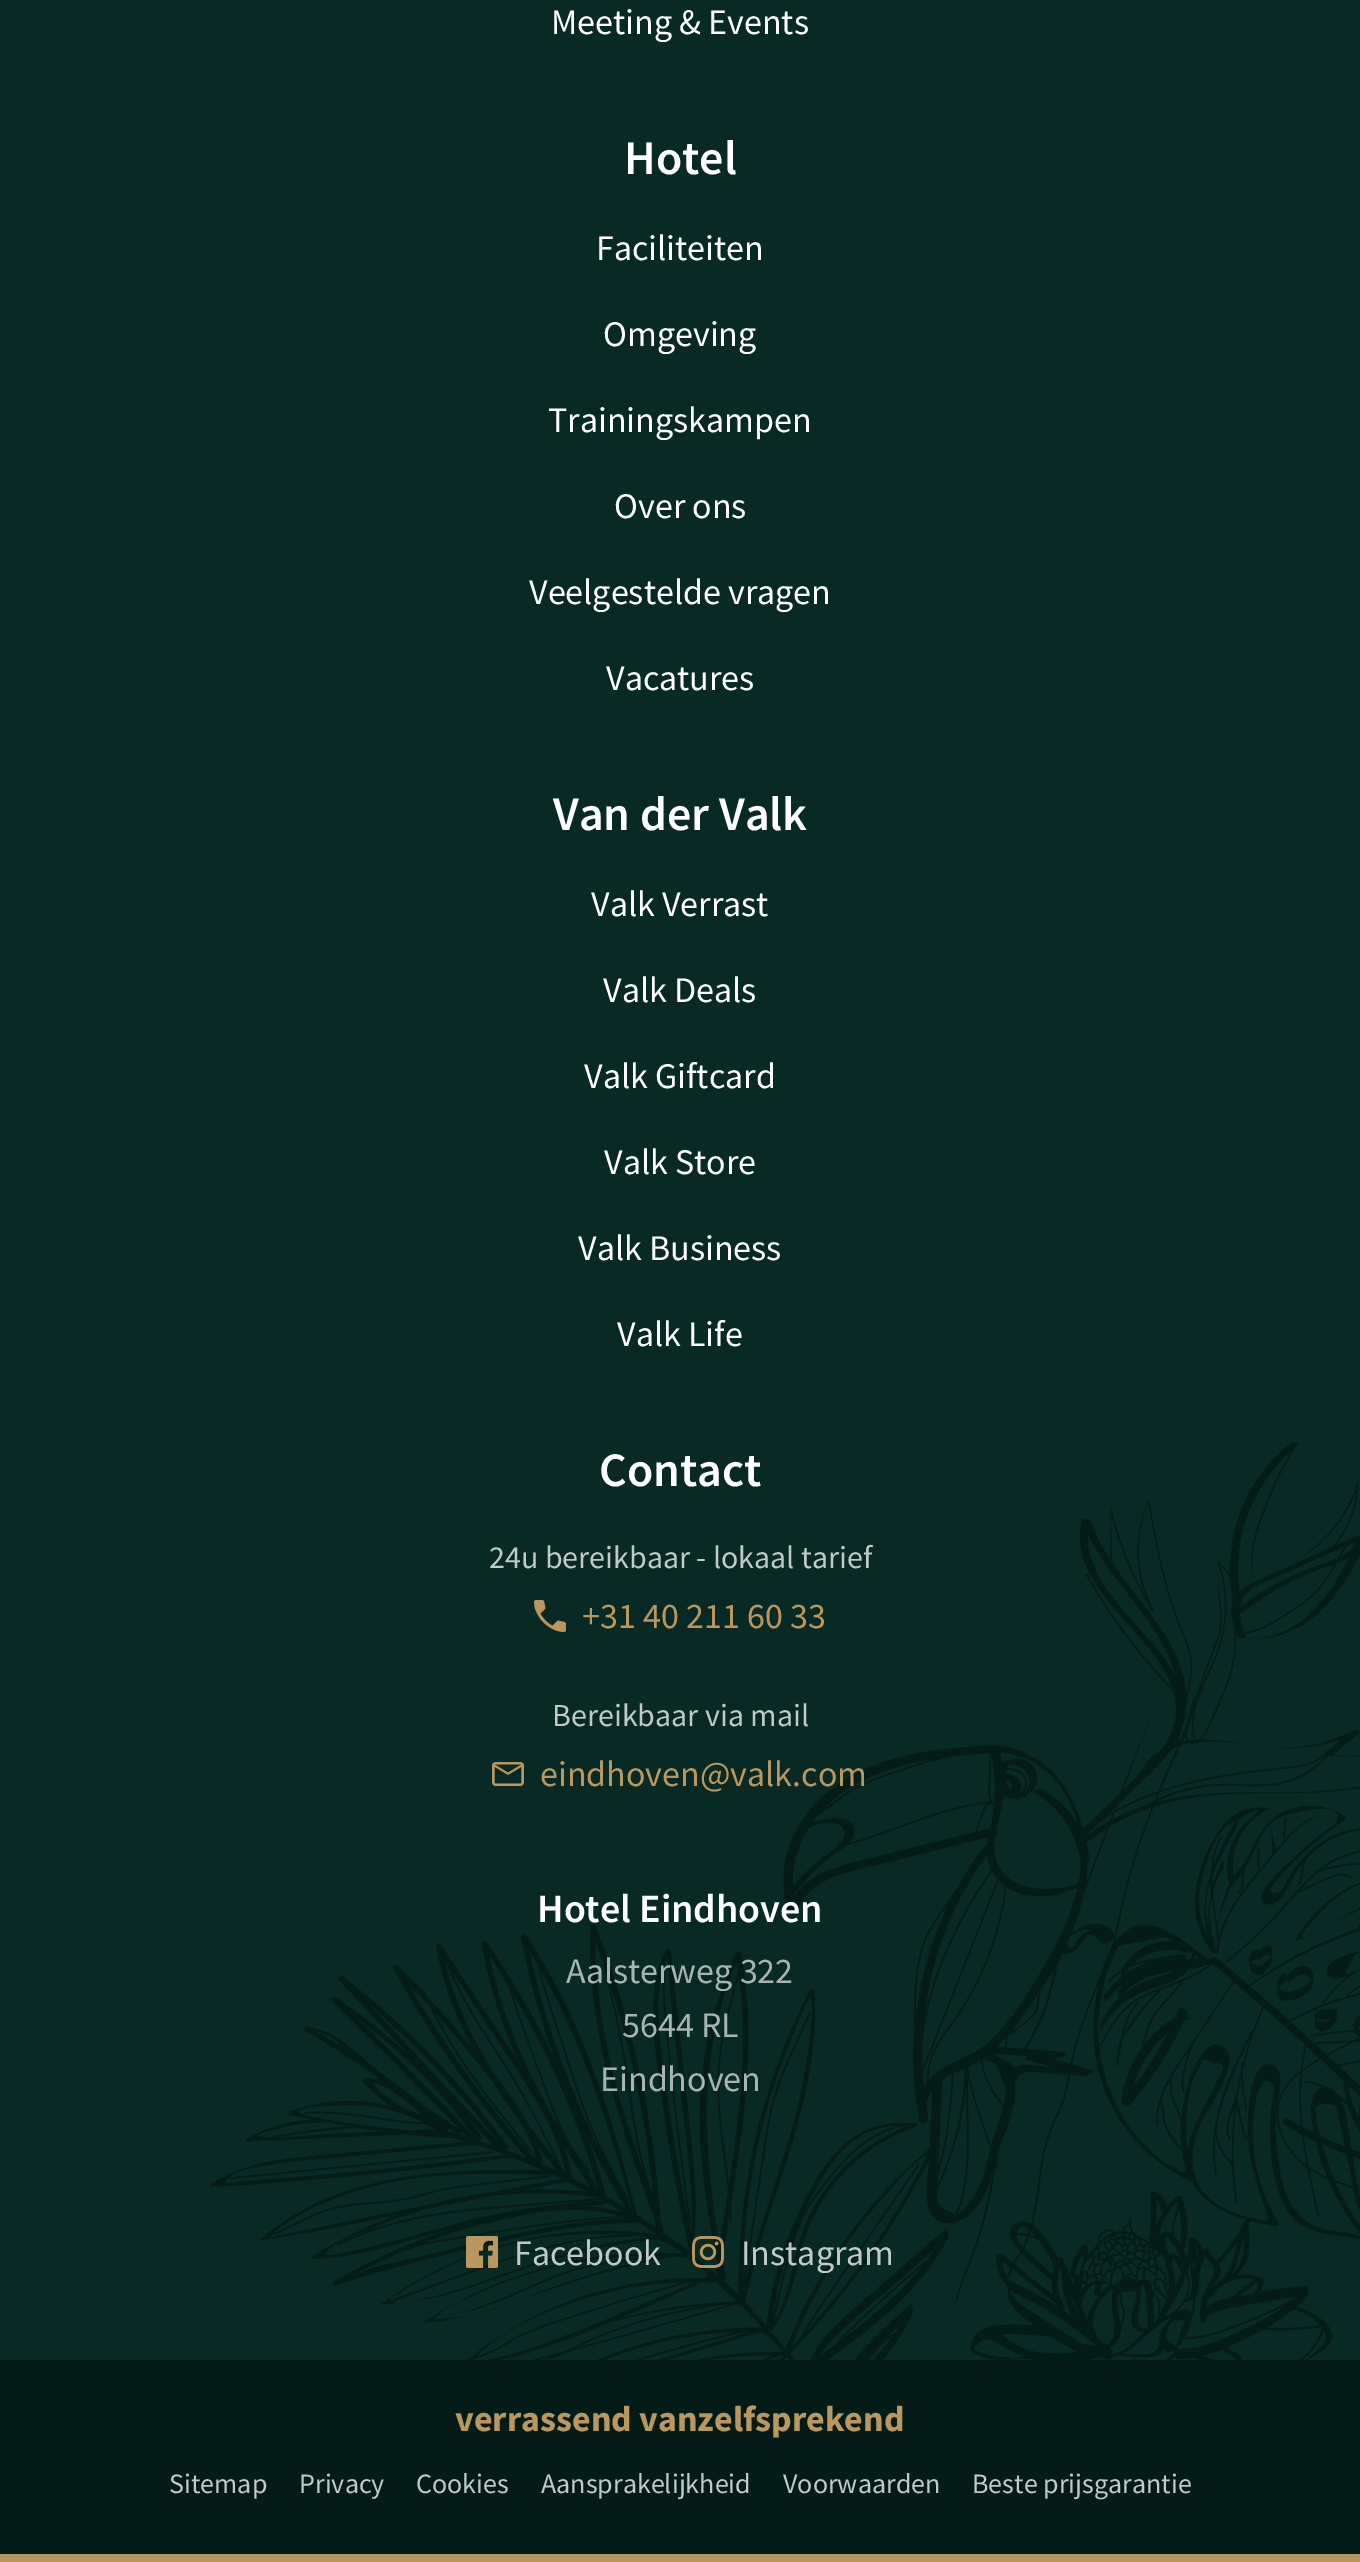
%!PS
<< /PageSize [1360 2562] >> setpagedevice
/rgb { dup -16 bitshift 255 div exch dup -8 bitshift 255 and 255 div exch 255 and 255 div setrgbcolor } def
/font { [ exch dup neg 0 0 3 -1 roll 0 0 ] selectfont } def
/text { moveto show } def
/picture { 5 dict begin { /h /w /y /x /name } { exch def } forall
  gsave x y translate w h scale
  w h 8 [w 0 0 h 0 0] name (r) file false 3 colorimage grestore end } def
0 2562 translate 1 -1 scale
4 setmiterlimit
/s1 { /SourceSansPro-Regular 36 font 16#FFFFFF rgb } def
/s2 { /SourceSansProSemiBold-SemiBold 48 font 16#FFFFFF rgb } def
/s3 { /SourceSansPro-Regular 32 font 16#C2CAC8 rgb } def
/s4 { /SourceSansPro-Regular 36 font 16#BA975F rgb } def
/s5 { /SourceSansProSemiBold-SemiBold 40 font 16#FFFFFF rgb } def
/s6 { /SourceSansPro-Regular 36 font 16#A9B3B2 rgb } def
/s7 { /SourceSansPro-Regular 36 font 16#C2CAC8 rgb } def
/s8 { /SourceSansPro-Bold 36 font 16#BA975F rgb } def
/s9 { /SourceSansPro-Regular 28 font 16#C2CAC8 rgb } def
16#092924 rgb
0 0 1360 2562 rectfill
(pic1.raw) 211 1442 1149 918 picture
s1
(Meeting & Events) 551 34 text
s2
(Hotel) 624 174 text
s1
(Faciliteiten) 596 260 text
(Omgeving) 603 346 text
(Trainingskampen) 548 432 text
(Over ons) 614 518 text
(Veelgestelde vragen) 529 604 text
(Vacatures) 606 690 text
s2
(Van der Valk) 553 830 text
s1
(Valk Verrast) 591 916 text
(Valk Deals) 603 1002 text
(Valk Giftcard) 584 1088 text
(Valk Store) 604 1174 text
(Valk Business) 578 1260 text
(Valk Life) 617 1346 text
s2
(Contact) 599 1486 text
s3
(24u bereikbaar - lokaal tarief) 489 1568 text
(pic2.raw) 534 1600 32 32 picture
s4
(+31 40 211 60 33) 582 1628 text
s3
(Bereikbaar via mail) 552 1726 text
(pic3.raw) 492 1762 32 24 picture
s4
(eindhoven@valk.com) 540 1786 text
s5
(Hotel Eindhoven) 537 1922 text
s6
(Aalsterweg 322) 566 1983 text
(5644 RL) 622 2037 text
(Eindhoven) 600 2091 text
(pic4.raw) 466 2236 32 32 picture
s7
(Facebook) 514 2265 text
(pic5.raw) 692 2236 32 32 picture
(Instagram) 741 2265 text
16#051B17 rgb
0 2360 1360 194 rectfill
16#BA975F rgb
0 2554 1360 8 rectfill
s8
(verrassend vanzelfsprekend) 455 2431 text
s9
(Sitemap) 169 2493 text
(Privacy) 299 2493 text
(Cookies) 416 2493 text
(Aansprakelijkheid) 541 2493 text
(Voorwaarden) 783 2493 text
(Beste prijsgarantie) 972 2493 text
showpage
